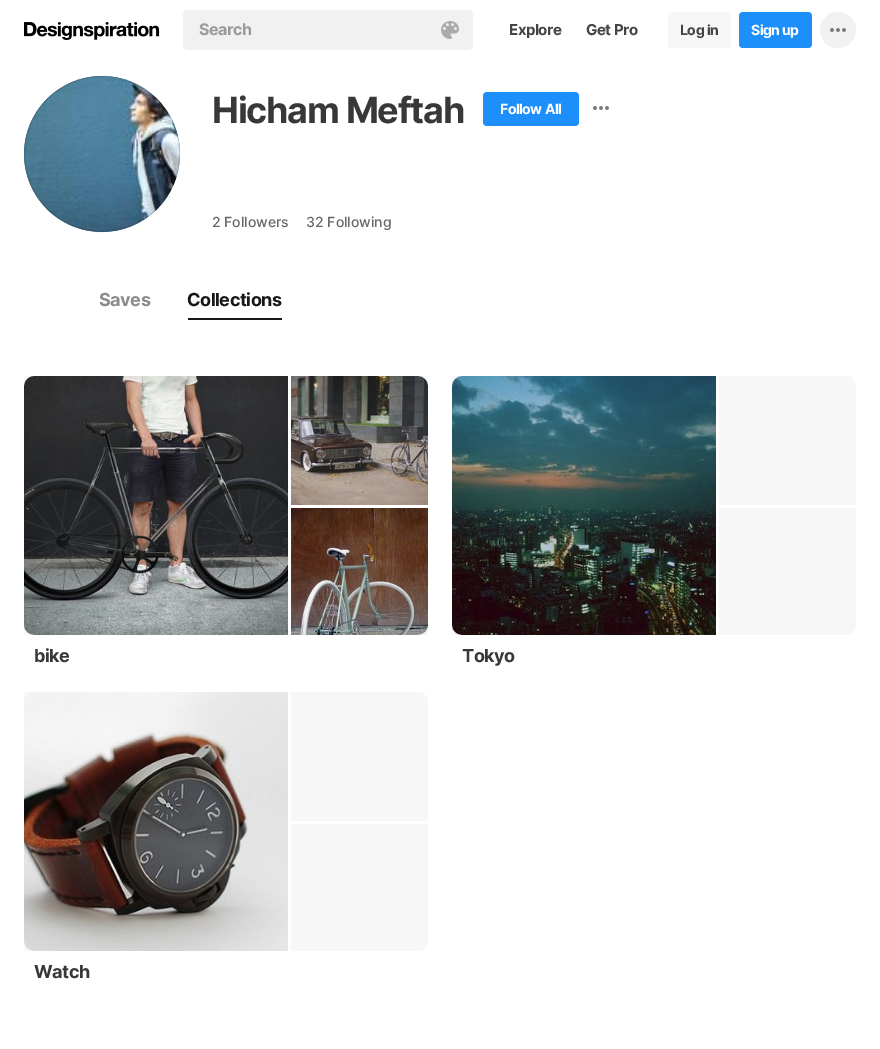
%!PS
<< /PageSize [880 1049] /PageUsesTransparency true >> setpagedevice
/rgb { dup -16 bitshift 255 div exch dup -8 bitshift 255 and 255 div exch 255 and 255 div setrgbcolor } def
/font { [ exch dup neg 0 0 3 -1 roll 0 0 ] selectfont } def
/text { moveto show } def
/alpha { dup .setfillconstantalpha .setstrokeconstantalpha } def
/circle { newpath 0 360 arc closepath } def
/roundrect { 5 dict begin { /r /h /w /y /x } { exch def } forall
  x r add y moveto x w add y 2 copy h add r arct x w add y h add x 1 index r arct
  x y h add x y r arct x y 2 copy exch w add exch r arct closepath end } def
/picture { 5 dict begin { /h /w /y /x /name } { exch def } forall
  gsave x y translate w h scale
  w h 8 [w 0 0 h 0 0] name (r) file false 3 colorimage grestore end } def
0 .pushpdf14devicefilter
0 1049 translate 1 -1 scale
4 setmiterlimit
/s1 { /Inter-Medium 14 font 16#676767 rgb } def
16#FFFFFF rgb
0 0 880 1049 rectfill
(pic1.raw) 24 22 136 18 picture
16#F1F1F1 rgb
183 10 290 40 5 roundrect fill
/Inter-Bold 16 font
16#9A9A9A rgb
199 35 moveto -0.5 0 (Search) ashow
(pic2.raw) 441 21 18 18 picture
/Inter-Bold 15 font
16#444444 rgb
509 35 moveto -0.5 0 (Explore) ashow
586 35 moveto -0.5 0 (Get Pro) ashow
16#F6F6F6 rgb
668 12 63 36 4 roundrect fill
/Inter-Bold 14 font
16#444444 rgb
680 35 moveto -0.5 0 (Log in) ashow
16#1D8FFB rgb
739 12 73 36 4 roundrect fill
16#FFFFFF rgb
751 35 moveto -0.5 0 (Sign up) ashow
16#F1F1F1 rgb
838 30 18 circle fill
(pic3.raw) 830 28 16 4 picture
16#467088 rgb
102 154 78 circle fill
(pic4.raw) 24 76 156 156 picture
0.1 alpha
16#000000 rgb
102 154 77.5 circle stroke
/Inter-Bold 36 font
1 alpha
16#383838 rgb
212 123 moveto -1.25 0 (Hicham Meftah) ashow
16#1D8FFB rgb
483 92 96 34 4 roundrect fill
/Inter-Bold 14 font
16#FFFFFF rgb
500 114 moveto -0.5 0 (Follow All) ashow
(pic5.raw) 593 106 16 4 picture
s1
(2 Followers) 212 227 text
(32 Following) 306 227 text
/Inter-Bold 18 font
16#8C8C8C rgb
99 306 moveto -0.5 0 (Saves) ashow
16#181818 rgb
187 306 moveto -0.5 0 (Collections) ashow
188 318 94 2 rectfill
(pic6.raw) 24 376 264 259 picture
0.03 alpha
16#000000 rgb
24 376 264 259 rectfill
1 alpha
(pic7.raw) 291 376 137 129 picture
0.03 alpha
291 376 137 129 rectfill
1 alpha
(pic8.raw) 291 508 137 127 picture
0.03 alpha
291 508 137 127 rectfill
1 alpha
16#383838 rgb
34 662 moveto -0.5 0 (bike) ashow
(pic9.raw) 452 376 264 259 picture
0.03 alpha
16#000000 rgb
452 376 264 259 rectfill
1 alpha
16#F7F7F7 rgb
719 376 moveto 846 376 lineto 851.5 376 856 380.5 856 386 curveto 856 505 lineto 719 505 lineto closepath fill
719 508 moveto 856 508 lineto 856 625 lineto 856 630.5 851.5 635 846 635 curveto 719 635 lineto closepath fill
16#383838 rgb
462 662 moveto -0.5 0 (Tokyo) ashow
(pic10.raw) 24 692 264 259 picture
0.03 alpha
16#000000 rgb
24 692 264 259 rectfill
1 alpha
16#F7F7F7 rgb
291 692 moveto 418 692 lineto 423.5 692 428 696.5 428 702 curveto 428 821 lineto 291 821 lineto closepath fill
291 824 moveto 428 824 lineto 428 941 lineto 428 946.5 423.5 951 418 951 curveto 291 951 lineto closepath fill
16#383838 rgb
34 978 moveto -0.5 0 (Watch) ashow
.poppdf14devicefilter showpage
